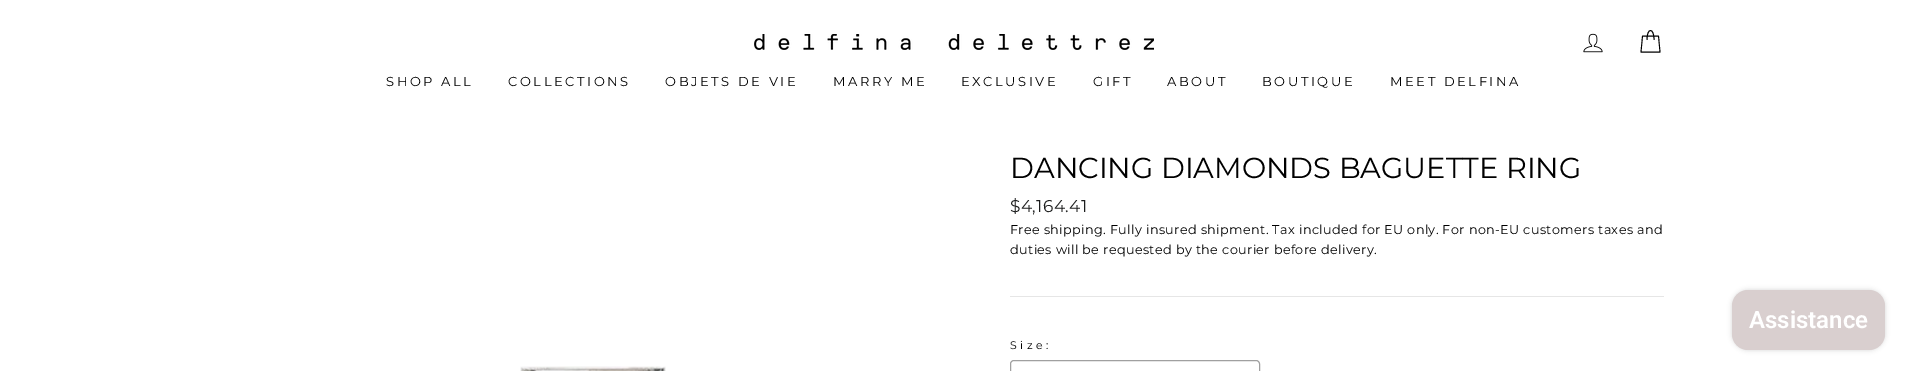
%!PS
<< /PageSize [1907 371] /PageUsesTransparency true >> setpagedevice
/rgb { dup -16 bitshift 255 div exch dup -8 bitshift 255 and 255 div exch 255 and 255 div setrgbcolor } def
/font { [ exch dup neg 0 0 3 -1 roll 0 0 ] selectfont } def
/text { moveto show } def
/alpha { dup .setfillconstantalpha .setstrokeconstantalpha } def
/roundrect { 5 dict begin { /r /h /w /y /x } { exch def } forall
  x r add y moveto x w add y 2 copy h add r arct x w add y h add x 1 index r arct
  x y h add x y r arct x y 2 copy exch w add exch r arct closepath end } def
/shadow { 12 dict begin { /a /b /q /h /w /y /x } { exch def } forall gsave /was 0 def
  9 -2 -9 { dup b mul 4 div /e exch def 1 sub .425 mul 2.718 exch exp 1 add a .99 .min exch div /now exch def
    1 1 now sub 1 was sub div sub alpha /was now def
    w h .min e 2 mul add 0 gt { x e sub y e sub w e 2 mul add h e 2 mul add
      q e add b .6 mul add w h .min 2 div e add .min 0 .max roundrect fill } if } for grestore end } def
/picture { 5 dict begin { /h /w /y /x /name } { exch def } forall
  gsave x y translate w h scale
  w h 8 [w 0 0 h 0 0] name (r) file false 3 colorimage grestore end } def
0 .pushpdf14devicefilter
0 371 translate 1 -1 scale
4 setmiterlimit
/s1 { /Montserrat-Regular 28.9 font 16#000000 rgb } def
/s2 { /Roboto-SemiBold 24 font 16#FFFFFF rgb } def
16#FFFFFF rgb
0 0 1907 371 rectfill
(pic1.raw) 754 34 400 16 picture
(pic2.raw) 1583 33 20 20 picture
16#000000 rgb
0.9 setlinewidth
1 setlinecap
1 setlinejoin
1647 39.5 moveto 1647 27.5 1654 27.5 1654 39.5 curveto 1642.5 36 moveto 1658.5 36 lineto 1660 52 lineto 1641 52 lineto closepath stroke
/Montserrat-Regular 13 font
386 86 moveto 2.6 0 (SHOP ALL) ashow
508 86 moveto 2.6 0 (COLLECTIONS) ashow
665 86 moveto 2.6 0 (OBJETS DE VIE) ashow
833 86 moveto 2.6 0 (MARRY ME) ashow
961 86 moveto 2.6 0 (EXCLUSIVE) ashow
1093 86 moveto 2.6 0 (GIFT) ashow
1167 86 moveto 2.6 0 (ABOUT) ashow
1262 86 moveto 2.6 0 (BOUTIQUE) ashow
1390 86 moveto 2.6 0 (MEET DELFINA) ashow
s1
(DANCING DIAMONDS BAGUETTE RING) 1010 178 text
/Montserrat-Regular 17 font
16#1C1D1D rgb
1010 212 moveto 0.38 0 ($4,164.41) ashow
/Montserrat-Regular 12.75 font
16#000000 rgb
1010 234 moveto 0.38 0 (Free shipping. Fully insured shipment. Tax included for EU only. For non-EU customers taxes and) ashow
1010 254 moveto 0.38 0 (duties will be requested by the courier before delivery.) ashow
16#E6E6E6 rgb
1010 296 654 1 rectfill
/Montserrat-Regular 11 font
16#000000 rgb
1010 349 moveto 3.5 0 (Size:) ashow
16#A0A0A0 rgb
1 setlinewidth
0 setlinecap
0 setlinejoin
1010.5 360.5 249 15 3.5 roundrect stroke
(pic3.raw) 520 366 146 5 picture
16#000000 rgb
1732 290 153 60 16 2.5 0.15 shadow
16#D9CFCF rgb
1732 290 153 60 16 roundrect fill
s2
(Assistance) 1749 328 text
.poppdf14devicefilter showpage
